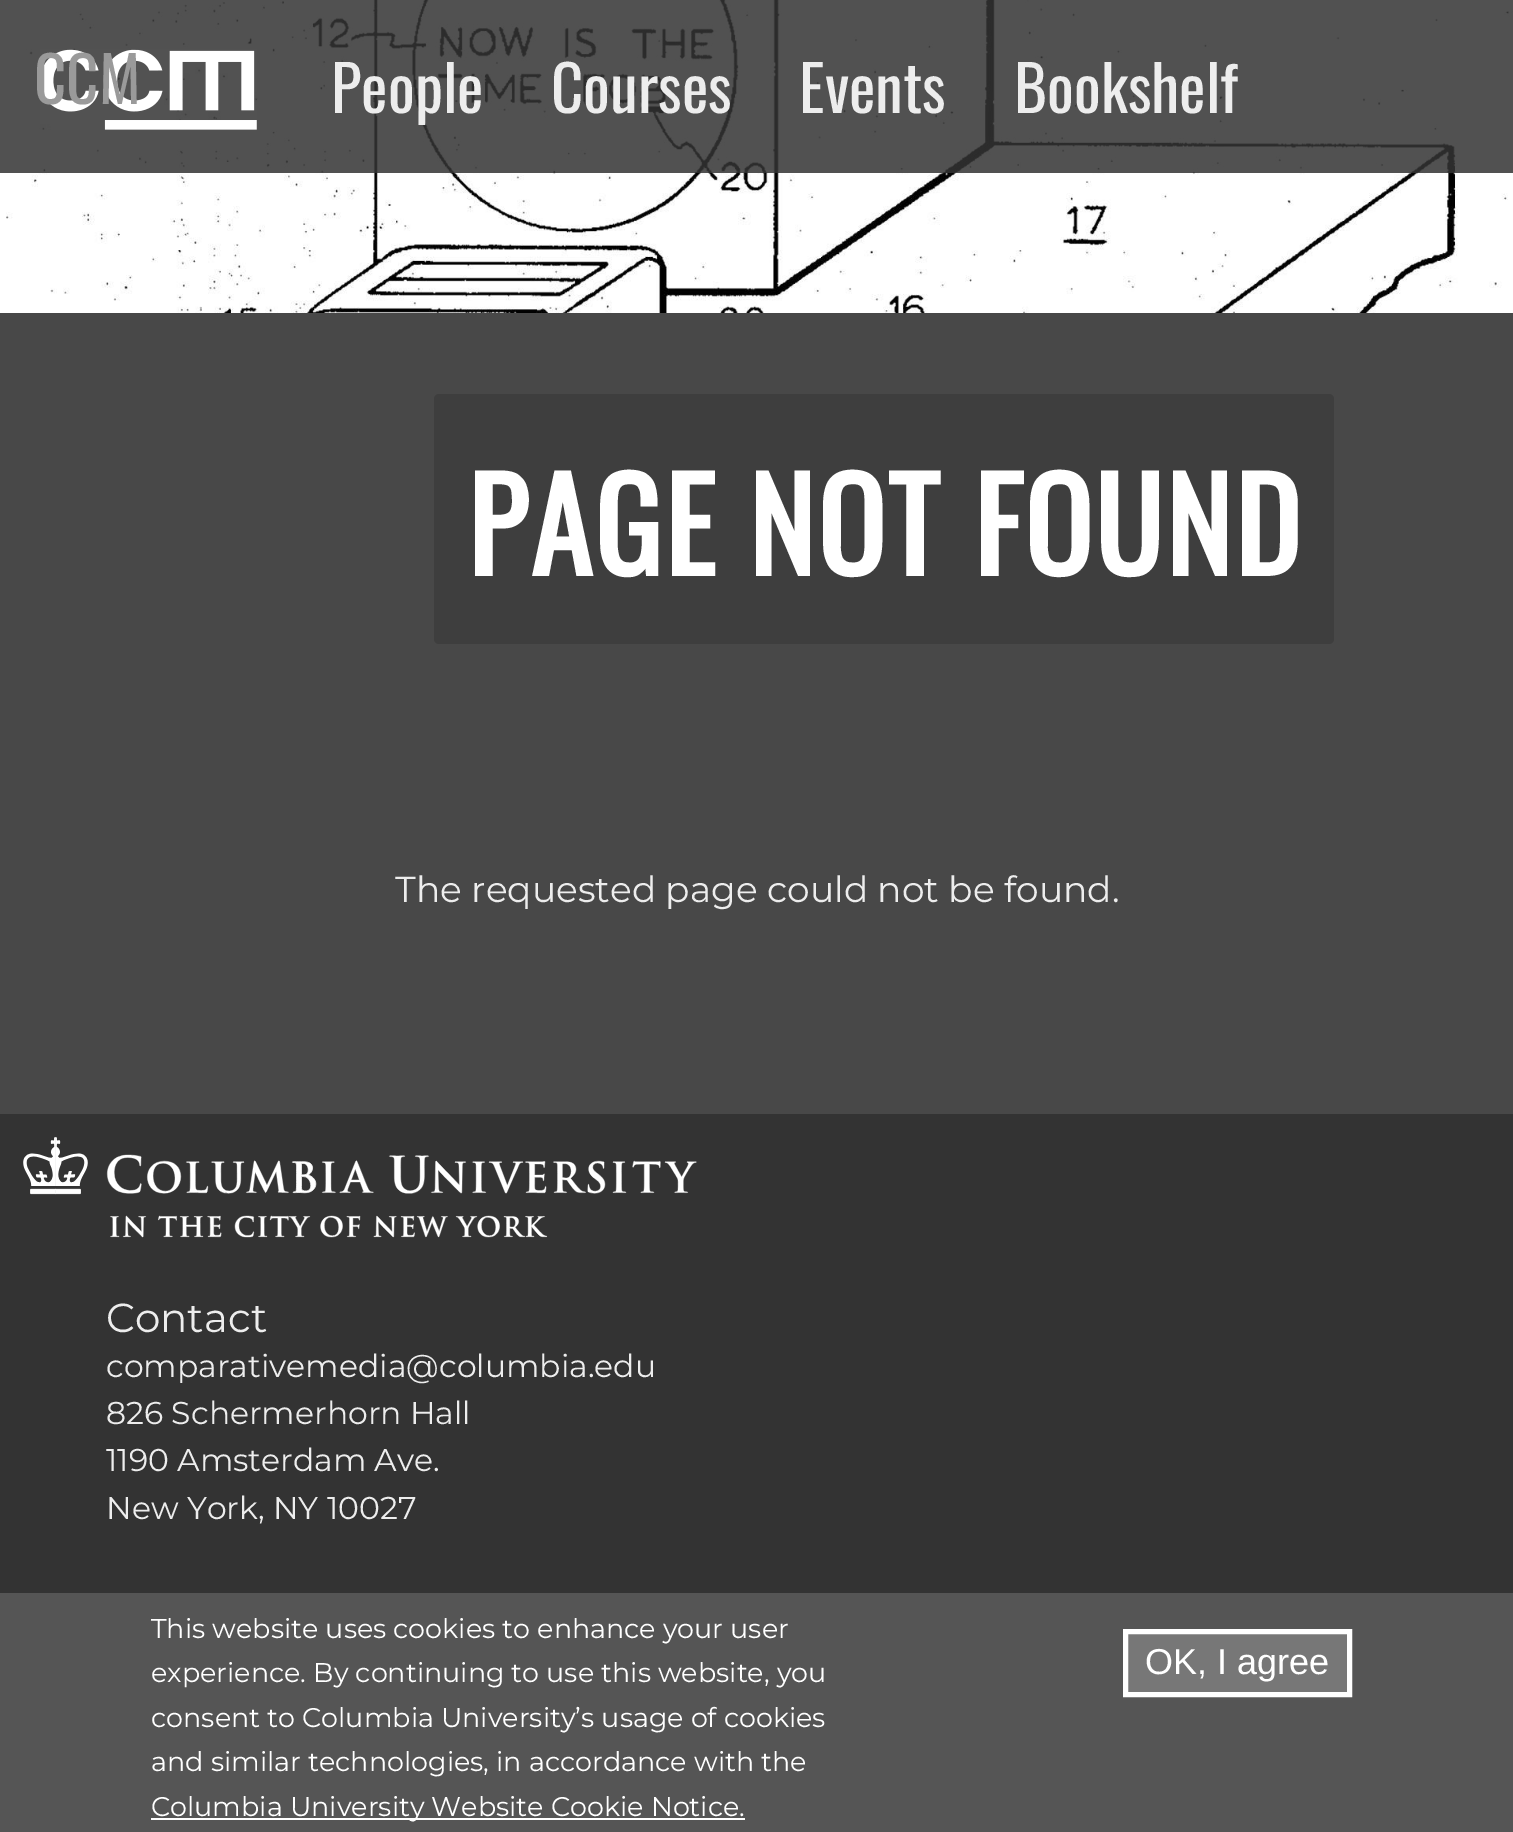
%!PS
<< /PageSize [1513 1832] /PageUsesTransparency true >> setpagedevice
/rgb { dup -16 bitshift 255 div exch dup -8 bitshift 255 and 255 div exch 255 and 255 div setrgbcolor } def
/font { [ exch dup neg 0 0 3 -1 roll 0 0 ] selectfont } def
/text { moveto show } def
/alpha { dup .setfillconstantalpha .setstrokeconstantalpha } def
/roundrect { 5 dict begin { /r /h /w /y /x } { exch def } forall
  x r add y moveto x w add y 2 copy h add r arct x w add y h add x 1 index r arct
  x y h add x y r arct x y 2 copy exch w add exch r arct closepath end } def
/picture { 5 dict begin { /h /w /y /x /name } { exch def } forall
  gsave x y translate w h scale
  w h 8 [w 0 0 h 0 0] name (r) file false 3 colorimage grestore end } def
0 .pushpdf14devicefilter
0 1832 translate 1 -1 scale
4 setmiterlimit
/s1 { /Oswald-Regular 63 font 16#9A9A9A rgb } def
/s2 { /Oswald-Regular 63 font 16#EDEDED rgb } def
/s3 { /Montserrat-Thin 36 font 16#EDEDED rgb } def
/s4 { /Montserrat-Thin 40.5 font 16#EDEDED rgb } def
/s5 { /Montserrat-Thin 31.5 font 16#EDEDED rgb } def
/s6 { /Montserrat-Thin 27 font 16#FFFFFF rgb } def
/s7 { /LiberationSans-Regular 36 font 16#FFFFFF rgb } def
16#484848 rgb
0 0 1513 1832 rectfill
(pic1.raw) 0 0 1513 313 picture
0.85 alpha
16#333333 rgb
0 0 1513 173 rectfill
1 alpha
(pic2.raw) 40 49 217 81 picture
s1
(CCM) 34 104 text
s2
(People) 331 113 text
(Courses) 551 113 text
(Events) 799 113 text
(Bookshelf) 1014 113 text
16#3E3E3E rgb
434 394 900 250 5 roundrect fill
/Oswald-Bold 126 font
16#FFFFFF rgb
467 576 moveto 2.25 0 (PAGE NOT FOUND) ashow
s3
(The requested page could not be found.) 395 902 text
16#333333 rgb
0 1114 1513 479 rectfill
(pic3.raw) 23 1137 674 101 picture
s4
(Contact) 106 1332 text
s5
(comparativemedia@columbia.edu) 106 1377 text
(826 Schermerhorn Hall) 106 1424 text
(1190 Amsterdam Ave.) 106 1471 text
(New York, NY 10027) 106 1519 text
16#555555 rgb
0 1593 1513 239 rectfill
s6
(This website uses cookies to enhance your user) 151 1638 text
(experience. By continuing to use this website, you) 151 1682 text
(consent to Columbia University’s usage of cookies) 151 1727 text
(and similar technologies, in accordance with the) 151 1771 text
151 1818 594 2 rectfill
(Columbia University Website Cookie Notice.) 151 1816 text
16#777777 rgb
1125.5 1631.5 moveto 1349.5 1631.5 lineto 1349.5 1694.5 lineto 1125.5 1694.5 lineto closepath gsave fill grestore
16#FFFFFF rgb
5 setlinewidth
stroke
s7
(OK, I agree) 1145 1674 text
.poppdf14devicefilter showpage
